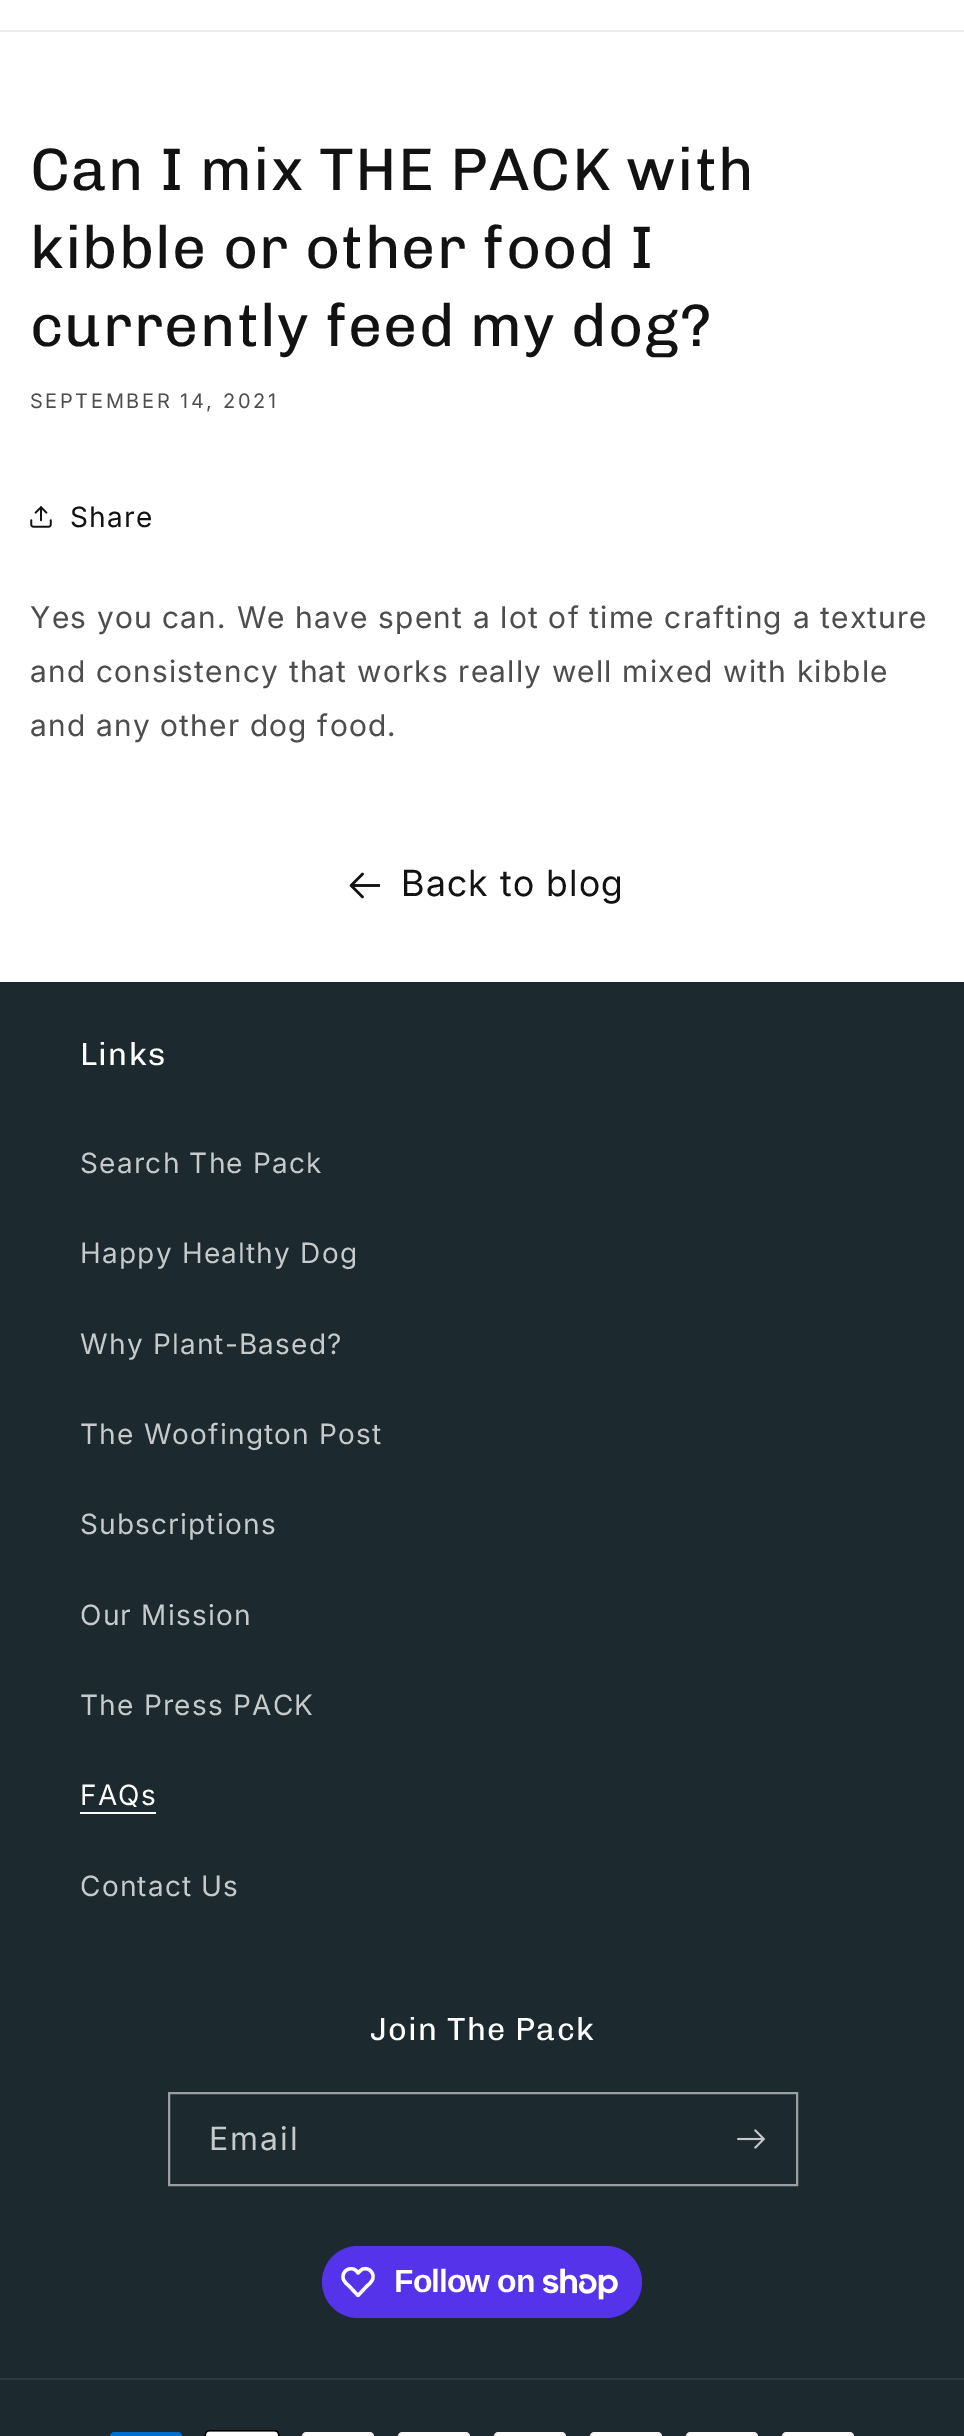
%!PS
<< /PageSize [964 2436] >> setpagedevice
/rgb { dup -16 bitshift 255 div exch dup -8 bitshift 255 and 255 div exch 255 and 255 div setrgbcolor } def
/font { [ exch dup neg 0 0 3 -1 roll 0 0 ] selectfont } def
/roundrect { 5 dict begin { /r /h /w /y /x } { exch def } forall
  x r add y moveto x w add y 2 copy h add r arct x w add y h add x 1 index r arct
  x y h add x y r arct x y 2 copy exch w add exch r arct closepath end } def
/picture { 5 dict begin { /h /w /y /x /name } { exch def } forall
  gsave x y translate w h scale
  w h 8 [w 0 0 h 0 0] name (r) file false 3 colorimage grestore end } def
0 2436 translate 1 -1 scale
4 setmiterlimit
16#FFFFFF rgb
0 0 964 2436 rectfill
16#ECECEC rgb
0 30 964 2 rectfill
/Chivo-Regular 60 font
16#121212 rgb
30 190 moveto 1.2 0 (Can I mix THE PACK with) ashow
30 268 moveto 1.2 0 (kibble or other food I) ashow
30 346 moveto 1.2 0 (currently feed my dog?) ashow
/Inter-Regular 20 font
16#4D4D4D rgb
30 408 moveto 2.6 0 (SEPTEMBER 14, 2021) ashow
(pic1.raw) 30 506 22 22 picture
/Inter-Regular 28 font
16#121212 rgb
70 527 moveto 1.2 0 (Share) ashow
/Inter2-Regular 30 font
16#4D4D4D rgb
30 628 moveto 1.2 0 (Yes you can. We have spent a lot of time crafting a texture) ashow
30 682 moveto 1.2 0 (and consistency that works really well mixed with kibble) ashow
30 736 moveto 1.2 0 (and any other dog food.) ashow
(pic2.raw) 349 872 31 27 picture
/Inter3-Regular 36 font
16#121212 rgb
401 896 moveto 1.2 0 (Back to blog) ashow
16#1C292E rgb
0 982 964 1454 rectfill
/Chivo-Regular 32 font
16#FFFFFF rgb
80 1065 moveto 1.2 0 (Links) ashow
/Inter-Regular 28 font
16#C6CACB rgb
80 1173 moveto 1.2 0 (Search The Pack) ashow
80 1263 moveto 1.2 0 (Happy Healthy Dog) ashow
80 1354 moveto 1.2 0 (Why Plant-Based?) ashow
80 1444 moveto 1.2 0 (The Woofington Post) ashow
80 1534 moveto 1.2 0 (Subscriptions) ashow
80 1625 moveto 1.2 0 (Our Mission) ashow
80 1715 moveto 1.2 0 (The Press PACK) ashow
16#FFFFFF rgb
80 1805 moveto 1.2 0 (FAQs) ashow
80 1812 76 2 rectfill
16#C6CACB rgb
80 1896 moveto 1.2 0 (Contact Us) ashow
/Chivo-Regular 32 font
16#FFFFFF rgb
370 2040 moveto 1.2 0 (Join The Pack) ashow
16#999FA1 rgb
2 setlinewidth
169 2093 628 92 rectstroke
/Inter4-Regular 32 font
16#C6CACB rgb
209 2150 moveto 2 0 (Email) ashow
(pic3.raw) 737 2129 28 20 picture
16#5433EB rgb
322 2246 320 72 36 roundrect fill
16#FFFFFF rgb
3.3 setlinewidth
1 setlinejoin
356.5 2271 moveto 358 2273 lineto 359.5 2271.5 361 2269.5 363 2269 curveto 369 2267 375 2273.5 372.5 2279.5 curveto 371.5 2282.5 368.5 2284.5 366.5 2286.5 curveto 358 2295.5 lineto 349.5 2286.5 lineto 347.5 2284.5 344.5 2282.5 343.5 2279.5 curveto 340.5 2271.5 350.5 2265 356.5 2271 curveto closepath stroke
/LiberationSans-Bold 32 font
394 2292 moveto -1 0 (Follow on) ashow
(pic4.raw) 543 2268 75 32 picture
16#2E3A3F rgb
0 2378 964 2 rectfill
(pic5.raw) 110 2432 72 4 picture
(pic6.raw) 204 2430 76 6 picture
(pic7.raw) 302 2432 72 4 picture
(pic7.raw) 398 2432 72 4 picture
(pic7.raw) 494 2432 72 4 picture
(pic7.raw) 590 2432 72 4 picture
(pic7.raw) 686 2432 72 4 picture
(pic7.raw) 782 2432 72 4 picture
showpage
